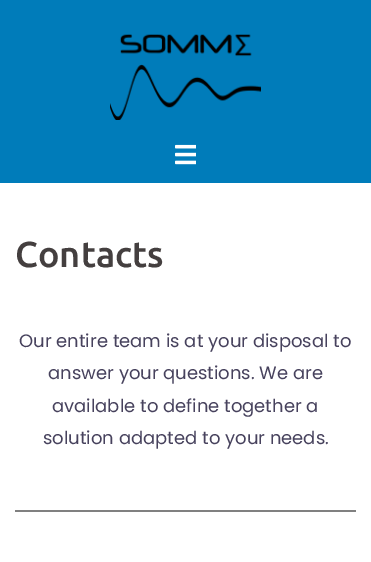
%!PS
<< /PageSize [371 562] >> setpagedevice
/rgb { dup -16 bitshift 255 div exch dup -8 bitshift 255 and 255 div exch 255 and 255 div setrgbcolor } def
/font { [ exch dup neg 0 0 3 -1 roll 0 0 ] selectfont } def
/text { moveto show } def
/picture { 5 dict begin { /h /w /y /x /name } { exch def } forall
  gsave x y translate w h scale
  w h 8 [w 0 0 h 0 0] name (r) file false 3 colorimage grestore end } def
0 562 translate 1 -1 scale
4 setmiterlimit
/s1 { /Ubuntu-Medium 36 font 16#443F3F rgb } def
/s2 { /Poppins-Regular 18 font 16#47425D rgb } def
16#FFFFFF rgb
0 0 371 562 rectfill
16#007CBA rgb
0 0 371 183 rectfill
(pic1.raw) 110 34 151 86 picture
(pic2.raw) 175 144 21 21 picture
s1
(Contacts) 15 267 text
s2
(Our entire team is at your disposal to) 19 347 text
(answer your questions. We are) 48 379 text
(available to define together a) 52 412 text
(solution adapted to your needs.) 43 444 text
16#808080 rgb
15 510 341 2 rectfill
showpage
